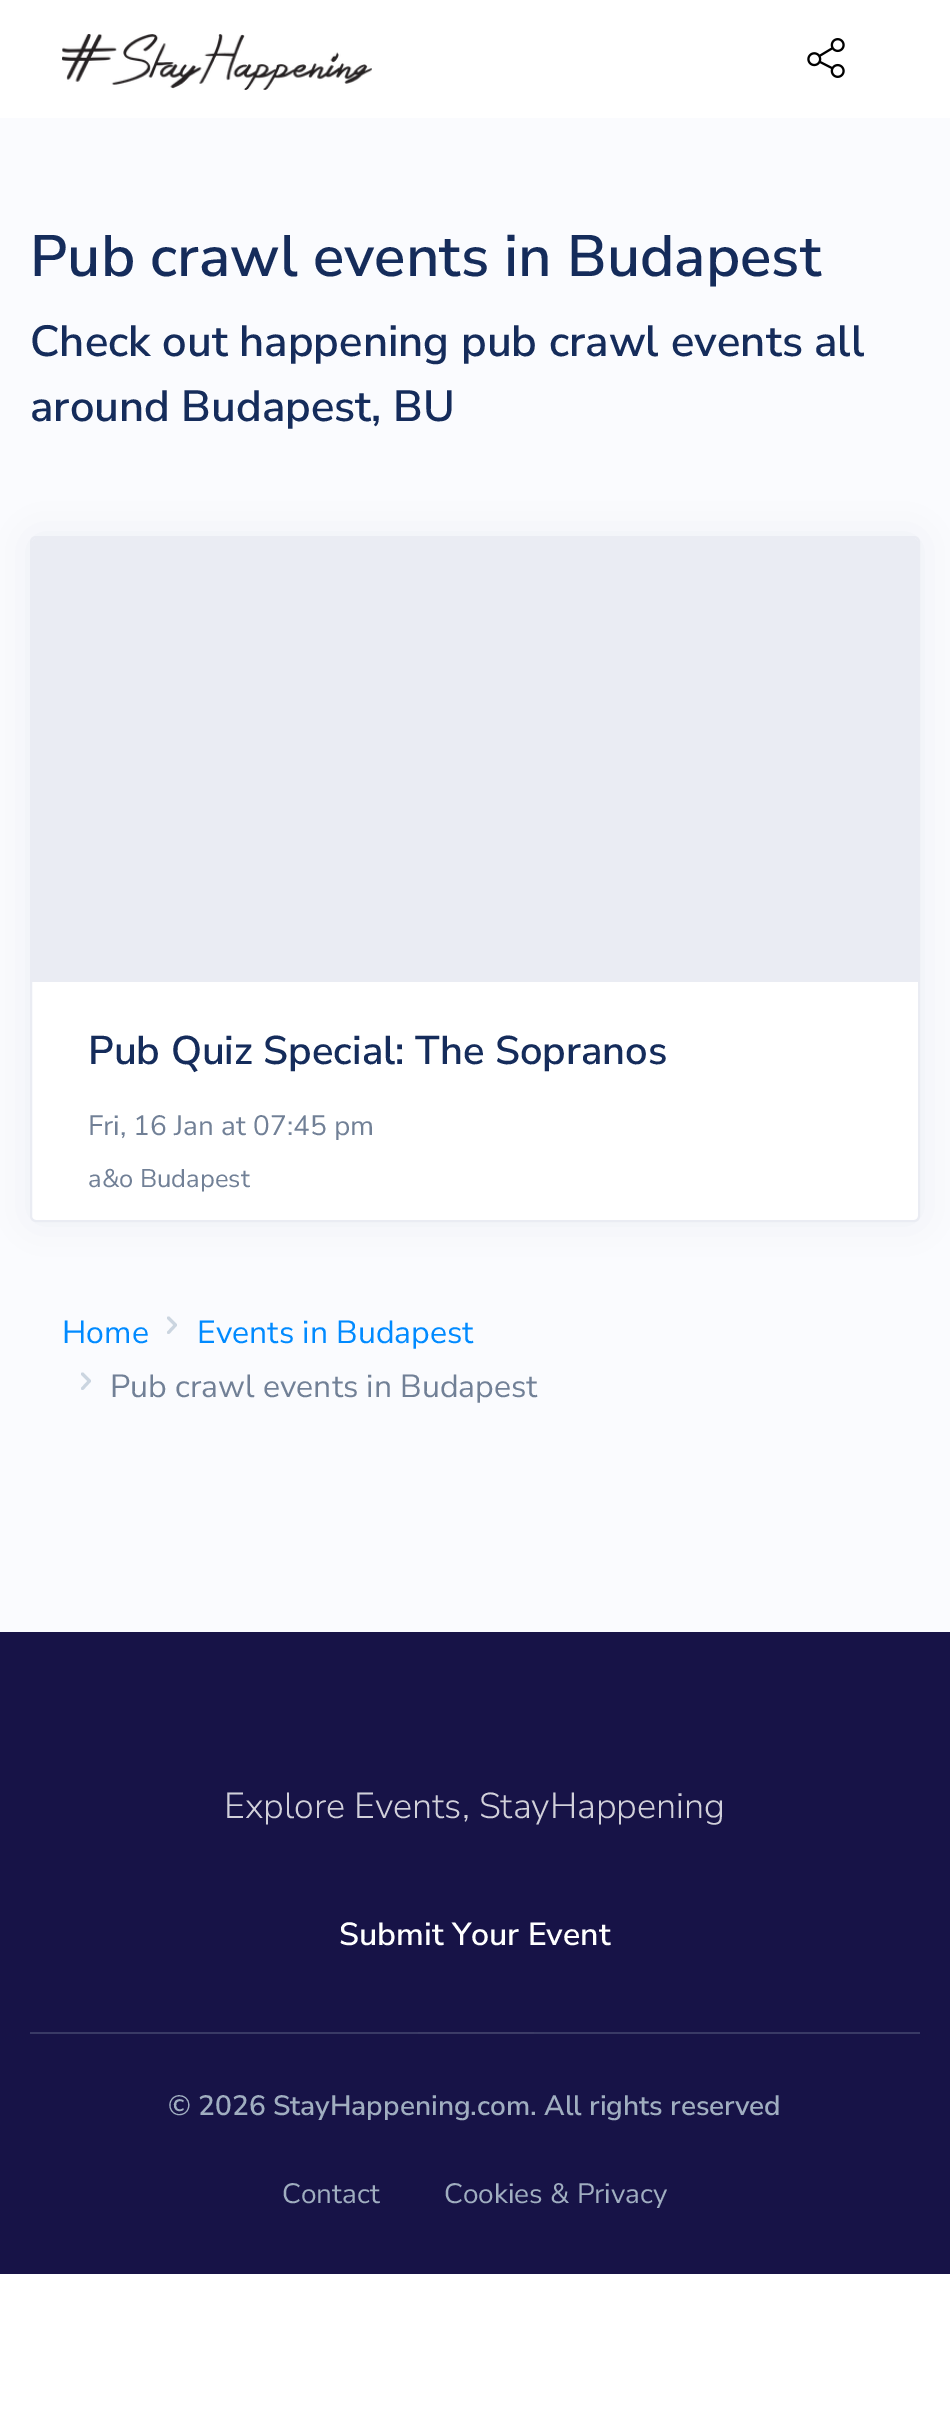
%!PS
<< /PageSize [950 2430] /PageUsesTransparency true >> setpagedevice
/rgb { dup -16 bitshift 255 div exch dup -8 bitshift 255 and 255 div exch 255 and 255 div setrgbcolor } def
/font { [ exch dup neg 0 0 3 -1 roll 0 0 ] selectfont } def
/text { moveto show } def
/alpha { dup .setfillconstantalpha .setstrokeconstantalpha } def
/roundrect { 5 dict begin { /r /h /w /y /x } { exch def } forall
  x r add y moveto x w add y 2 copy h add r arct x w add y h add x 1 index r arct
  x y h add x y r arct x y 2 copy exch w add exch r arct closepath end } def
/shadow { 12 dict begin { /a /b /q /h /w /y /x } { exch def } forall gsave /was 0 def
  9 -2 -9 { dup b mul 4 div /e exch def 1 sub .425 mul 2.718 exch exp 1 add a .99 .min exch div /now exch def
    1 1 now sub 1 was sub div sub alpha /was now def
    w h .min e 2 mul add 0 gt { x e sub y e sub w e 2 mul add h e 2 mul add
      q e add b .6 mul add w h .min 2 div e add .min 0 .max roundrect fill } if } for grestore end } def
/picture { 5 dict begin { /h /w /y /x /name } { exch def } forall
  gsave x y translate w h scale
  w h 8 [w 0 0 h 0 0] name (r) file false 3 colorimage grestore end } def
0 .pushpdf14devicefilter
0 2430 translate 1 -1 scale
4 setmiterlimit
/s1 { /NunitoSans-SemiBold 58.25 font 16#152C5B rgb } def
/s2 { /NunitoSans-SemiBold 43.6 font 16#152C5B rgb } def
/s3 { /NunitoSans-SemiBold 40 font 16#152C5B rgb } def
/s4 { /NunitoSans-Regular 28 font 16#718096 rgb } def
/s5 { /NunitoSans-Regular 25.5 font 16#718096 rgb } def
/s6 { /NunitoSans-Regular 32 font 16#008AFF rgb } def
/s7 { /NunitoSans-Regular 32 font 16#718096 rgb } def
/s8 { /NunitoSans-Light 36 font 16#D1D0DA rgb } def
/s9 { /NunitoSans-SemiBold 32 font 16#FFFFFF rgb } def
/s10 { /NunitoSans-SemiBold 28 font 16#A0AEC0 rgb } def
/s11 { /NunitoSans-Regular 28 font 16#A0AEC0 rgb } def
16#FFFFFF rgb
0 0 950 2430 rectfill
(pic1.raw) 62 34 310 56 picture
(pic2.raw) 807 38 38 40 picture
16#FAFBFE rgb
0 118 950 1514 rectfill
s1
(Pub crawl events in Budapest) 30 276 text
s2
(Check out happening pub crawl) 30 356 text
(events all) 671 356 text
(around Budapest, BU) 30 421 text
16#1F2D3D rgb
30 536 890 686 6 20 0.05 shadow
16#FFFFFF rgb
31 537 888 684 5 roundrect gsave fill grestore
16#EAECF3 rgb
2 setlinewidth
stroke
36 538 moveto 914 538 lineto 916 538 918 540 918 542 curveto 918 982 lineto 32 982 lineto 32 542 lineto 32 540 34 538 36 538 curveto closepath fill
s3
(Pub Quiz Special: The Sopranos) 88 1064 text
s4
(Fri, 16 Jan at 07:45 pm) 88 1135 text
s5
(a&o Budapest) 88 1187 text
s6
(Home) 62 1343 text
16#CBD5E0 rgb
3 setlinewidth
1 setlinecap
1 setlinejoin
168.5 1332.5 moveto 175.5 1325 lineto 168.5 1318 lineto stroke
s6
(Events in Budapest) 197 1343 text
16#CBD5E0 rgb
82.5 1388.5 moveto 89.5 1381 lineto 82.5 1374 lineto stroke
s7
(Pub crawl events in Budapest) 110 1397 text
16#171347 rgb
0 1632 950 642 rectfill
s8
(Explore Events, StayHappening) 224 1818 text
s9
(Submit Your Event) 339 1945 text
16#393A65 rgb
30 2032 890 2 rectfill
gsave 418 2032 moveto 534 2032 lineto 534 2034 lineto 418 2034 lineto closepath clip newpath 476 2033 translate 503 1.4 scale
<< /ShadingType 3 /ColorSpace /DeviceRGB /Coords [0 0 0 0 0 1] /Extend [true true] /Function << /FunctionType 3 /Domain [0 1] /Functions [<< /FunctionType 2 /Domain [0 1] /C0 [0.243 0.243 0.408] /C1 [0.224 0.227 0.396] /N 1 >> << /FunctionType 2 /Domain [0 1] /C0 [0.224 0.227 0.396] /C1 [0.224 0.227 0.396] /N 1 >>] /Bounds [0.75] /Encode [0 1 0 1] >> >> shfill grestore
s10
(© 2026 StayHappening.com. All rights reserved) 168 2115 text
s11
(Contact) 282 2203 text
(Cookies & Privacy) 444 2203 text
.poppdf14devicefilter showpage
